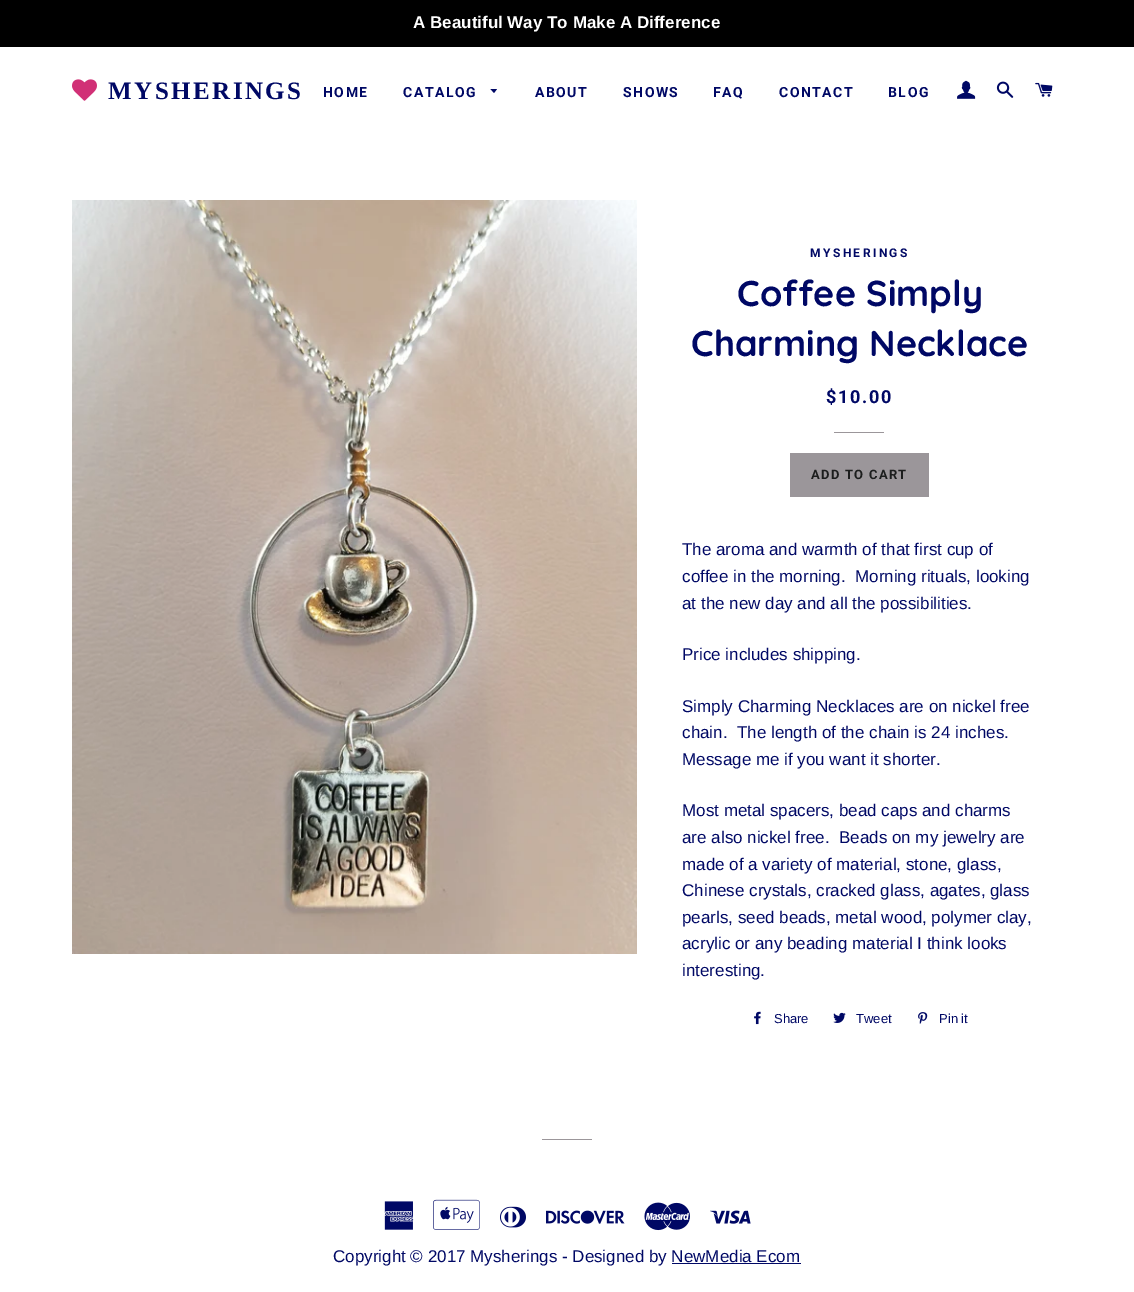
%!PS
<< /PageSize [1134 1292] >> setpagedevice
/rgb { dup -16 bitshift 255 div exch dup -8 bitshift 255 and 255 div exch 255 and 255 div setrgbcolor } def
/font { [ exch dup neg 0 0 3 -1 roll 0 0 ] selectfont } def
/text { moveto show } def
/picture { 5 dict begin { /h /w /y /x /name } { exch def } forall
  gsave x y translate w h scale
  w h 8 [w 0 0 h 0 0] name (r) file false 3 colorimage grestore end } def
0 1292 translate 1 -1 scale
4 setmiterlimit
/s1 { /LiberationSans-Bold 17 font 16#FFFFFF rgb } def
/s2 { /Quicksand-Light 36 font 16#000865 rgb } def
/s3 { /LiberationSans-Regular 17 font 16#000865 rgb } def
/s4 { /LiberationSans-Regular 13 font 16#000865 rgb } def
16#FFFFFF rgb
0 0 1134 1292 rectfill
16#000000 rgb
0 0 1134 47 rectfill
s1
(A Beautiful Way To Make A Difference) 413 28 text
(pic1.raw) 72 79 25 22 picture
/LiberationSerif-Bold 25 font
16#000865 rgb
108 99 moveto 2.5 0 (MYSHERINGS) ashow
/Roboto-Bold 14 font
323 97 moveto 1.5 0 (HOME) ashow
403 97 moveto 1.5 0 (CATALOG) ashow
490.5 89 moveto 494 93 lineto 497 89 lineto closepath fill
535 97 moveto 1.5 0 (ABOUT) ashow
623 97 moveto 1.5 0 (SHOWS) ashow
713 97 moveto 1.5 0 (FAQ) ashow
779 97 moveto 1.5 0 (CONTACT) ashow
888 97 moveto 1.5 0 (BLOG) ashow
(pic2.raw) 957 80 19 19 picture
(pic3.raw) 996 81 18 17 picture
(pic4.raw) 1035 82 18 15 picture
(pic5.raw) 72 200 565 754 picture
/Roboto-Bold 12 font
810 257 moveto 2.4 0 (MYSHERINGS) ashow
s2
(Coffee Simply) 737 306 text
(Charming Necklace) 691 356 text
/Roboto-Bold 18 font
826 403 moveto 1.75 0 ($10.00) ashow
16#9B969A rgb
834 432 50 1 rectfill
790 453 139 44 rectfill
/Roboto-Bold 13 font
16#1C1D1D rgb
811 479 moveto 1.25 0 (ADD TO CART) ashow
s3
(The aroma and warmth of that first cup of) 682 555 text
(coffee in the morning.  Morning rituals, looking) 682 582 text
(at the new day and all the possibilities.) 682 609 text
(Price includes shipping.) 682 660 text
(Simply Charming Necklaces are on nickel free) 682 712 text
(chain.  The length of the chain is 24 inches.) 682 738 text
(Message me if you want it shorter.) 682 765 text
(Most metal spacers, bead caps and charms) 682 816 text
(are also nickel free.  Beads on my jewelry are) 682 843 text
(made of a variety of material, stone, glass,) 682 870 text
(Chinese crystals, cracked glass, agates, glass) 682 896 text
(pearls, seed beads, metal wood, polymer clay,) 682 923 text
(acrylic or any beading material I think looks) 682 949 text
(interesting.) 682 976 text
(pic6.raw) 754 1011 7 14 picture
s4
(Share) 774 1023 text
(pic7.raw) 833 1012 13 11 picture
(Tweet) 856 1023 text
(pic8.raw) 918 1012 10 12 picture
(Pin it) 939 1023 text
16#9B969A rgb
542 1139 50 1 rectfill
(pic9.raw) 384 1201 30 29 picture
(pic10.raw) 433 1199 47 31 picture
(pic11.raw) 500 1206 26 22 picture
(pic12.raw) 546 1210 79 14 picture
(pic13.raw) 644 1202 46 29 picture
(pic14.raw) 710 1210 41 14 picture
s3
(Copyright © 2017 Mysherings - Designed by NewMedia Ecom) 333 1262 text
672 1263 129 1 rectfill
showpage
